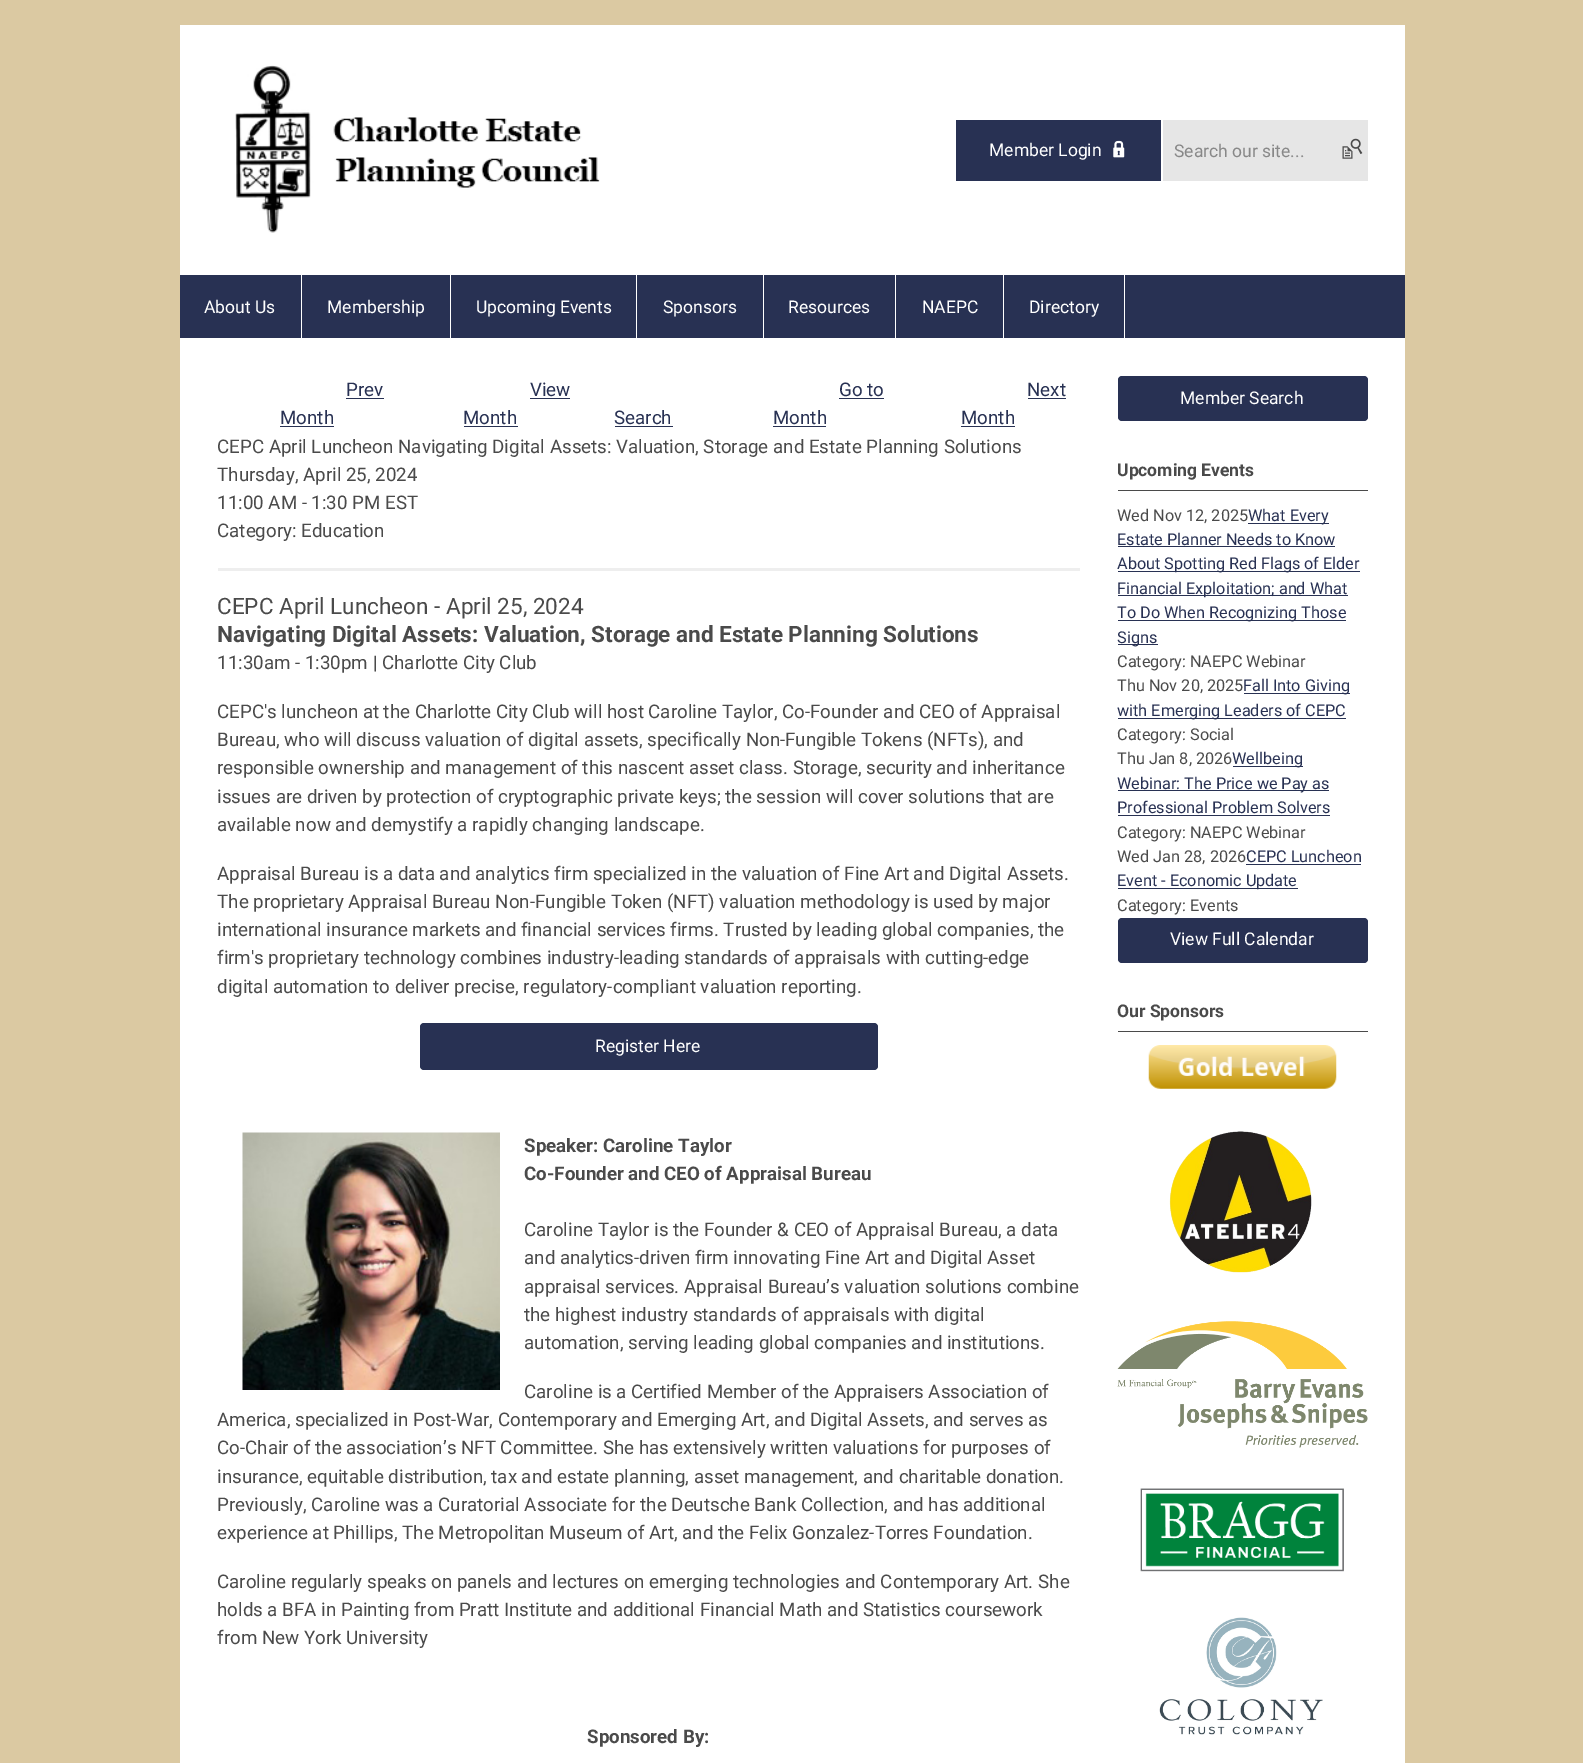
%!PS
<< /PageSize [1583 1763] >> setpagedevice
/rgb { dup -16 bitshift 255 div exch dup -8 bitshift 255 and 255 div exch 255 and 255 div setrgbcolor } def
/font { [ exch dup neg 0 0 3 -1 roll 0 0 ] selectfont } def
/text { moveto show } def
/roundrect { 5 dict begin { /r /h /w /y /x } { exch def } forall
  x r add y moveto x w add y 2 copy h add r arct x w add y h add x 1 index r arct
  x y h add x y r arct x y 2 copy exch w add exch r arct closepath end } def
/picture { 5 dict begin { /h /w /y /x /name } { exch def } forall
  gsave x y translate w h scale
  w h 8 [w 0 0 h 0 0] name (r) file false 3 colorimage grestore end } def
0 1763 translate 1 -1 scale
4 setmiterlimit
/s1 { /Roboto-Regular 17.5 font 16#FFFFFF rgb } def
/s2 { /Roboto-Regular 17.5 font 16#888888 rgb } def
/s3 { /Roboto-Regular 18.75 font 16#283153 rgb } def
/s4 { /Roboto-Regular 18.75 font 16#4A4A4A rgb } def
/s5 { /Roboto-Regular 22.5 font 16#4A4A4A rgb } def
/s6 { /Roboto-Bold 22.5 font 16#4A4A4A rgb } def
/s7 { /Roboto-Bold 18.75 font 16#4A4A4A rgb } def
/s8 { /Roboto-Bold 17.5 font 16#4A4A4A rgb } def
/s9 { /Roboto-Regular 16.25 font 16#4A4A4A rgb } def
/s10 { /Roboto-Regular 16.25 font 16#283153 rgb } def
16#DBC9A2 rgb
0 0 1583 1763 rectfill
16#FFFFFF rgb
180 25 1225 250 rectfill
(pic1.raw) 235 65 365 168 picture
16#283153 rgb
956 120 205 61 rectfill
s1
(Member Login) 989 156 text
(pic2.raw) 1113 140 12 18 picture
16#E6E6E6 rgb
1163 120 205 61 rectfill
s2
(Search our site...) 1174 157 text
(pic3.raw) 1342 138 21 21 picture
16#283153 rgb
180 275 1225 63 rectfill
16#FFFFFF rgb
180 338 1225 1425 rectfill
301 275 1 63 rectfill
(About Us) 204 313 text
450 275 1 63 rectfill
(Membership) 327 313 text
636 275 1 63 rectfill
(Upcoming Events) 476 313 text
763 275 1 63 rectfill
(Sponsors) 663 313 text
895 275 1 63 rectfill
(Resources) 788 313 text
1003 275 1 63 rectfill
(NAEPC) 922 313 text
1124 275 1 63 rectfill
(Directory) 1029 313 text
s3
(Prev) 346 396 text
346 398 38 1 rectfill
(Month) 280 424 text
280 426 54 1 rectfill
(View) 530 396 text
530 398 40 1 rectfill
(Month) 463 424 text
464 426 54 1 rectfill
(Search) 614 424 text
615 426 58 1 rectfill
(Go to) 839 396 text
839 398 45 1 rectfill
(Month) 773 424 text
773 426 53 1 rectfill
(Next) 1027 396 text
1028 398 38 1 rectfill
(Month) 961 424 text
961 426 54 1 rectfill
s4
(CEPC April Luncheon Navigating Digital Assets: Valuation, Storage and Estate Planning Solutions) 217 453 text
(Thursday, April 25, 2024) 217 481 text
(11:00 AM - 1:30 PM EST) 217 509 text
(Category: Education) 217 537 text
16#EEEEEE rgb
218 568 862 3 rectfill
s5
(CEPC April Luncheon - April 25, 2024) 217 614 text
s6
(Navigating Digital Assets: Valuation, Storage and Estate Planning Solutions) 217 642 text
s4
(11:30am - 1:30pm | Charlotte City Club) 217 669 text
(CEPC's luncheon at the Charlotte City Club will host Caroline Taylor, Co-Founder and CEO of Appraisal) 217 718 text
(Bureau, who will discuss valuation of digital assets, specifically Non-Fungible Tokens \(NFTs\), and) 217 746 text
(responsible ownership and management of this nascent asset class. Storage, security and inheritance) 217 774 text
(issues are driven by protection of cryptographic private keys; the session will cover solutions that are) 217 803 text
(available now and demystify a rapidly changing landscape.) 217 831 text
(Appraisal Bureau is a data and analytics firm specialized in the valuation of Fine Art and Digital Assets.) 217 880 text
(The proprietary Appraisal Bureau Non-Fungible Token \(NFT\) valuation methodology is used by major) 217 908 text
(international insurance markets and financial services firms. Trusted by leading global companies, the) 217 936 text
(firm's proprietary technology combines industry-leading standards of appraisals with cutting-edge) 217 964 text
(digital automation to deliver precise, regulatory-compliant valuation reporting.) 217 993 text
16#283153 rgb
420 1023 458 47 4 roundrect fill
s1
(Register Here) 595 1052 text
(pic4.raw) 242 1132 258 258 picture
s7
(Speaker: Caroline Taylor) 524 1152 text
(Co-Founder and CEO of Appraisal Bureau) 524 1180 text
s4
(Caroline Taylor is the Founder & CEO of Appraisal Bureau, a data) 524 1236 text
(and analytics-driven firm innovating Fine Art and Digital Asset) 524 1264 text
(appraisal services. Appraisal Bureau’s valuation solutions combine) 524 1293 text
(the highest industry standards of appraisals with digital) 524 1321 text
(automation, serving leading global companies and institutions.) 524 1349 text
(Caroline is a Certified Member of the Appraisers Association of) 524 1398 text
(America, specialized in Post-War, Contemporary and Emerging Art, and Digital Assets, and serves as) 217 1426 text
(Co-Chair of the association’s NFT Committee. She has extensively written valuations for purposes of) 217 1454 text
(insurance, equitable distribution, tax and estate planning, asset management, and charitable donation.) 217 1483 text
(Previously, Caroline was a Curatorial Associate for the Deutsche Bank Collection, and has additional) 217 1511 text
(experience at Phillips, The Metropolitan Museum of Art, and the Felix Gonzalez-Torres Foundation.) 217 1539 text
(Caroline regularly speaks on panels and lectures on emerging technologies and Contemporary Art. She) 217 1588 text
(holds a BFA in Painting from Pratt Institute and additional Financial Math and Statistics coursework) 217 1616 text
(from New York University) 217 1644 text
s7
(Sponsored By:) 587 1743 text
16#283153 rgb
1118 376 250 45 4 roundrect fill
s1
(Member Search) 1180 404 text
16#4A4A4A rgb
1118 490 250 1 rectfill
s8
(Upcoming Events) 1117 476 text
s9
(Wed Nov 12, 2025) 1117 521 text
16#283153 rgb
1248 523 81 1 rectfill
(What Every) 1248 521 text
(Estate Planner Needs to Know) 1117 545 text
1118 546 217 1 rectfill
1118 571 242 1 rectfill
(About Spotting Red Flags of Elder) 1117 569 text
1118 595 230 1 rectfill
(Financial Exploitation; and What) 1117 594 text
1118 620 228 1 rectfill
(To Do When Recognizing Those) 1117 618 text
1118 644 40 1 rectfill
(Signs) 1117 643 text
s9
(Category: NAEPC Webinar) 1117 667 text
(Thu Nov 20, 2025) 1117 691 text
16#283153 rgb
1244 693 106 1 rectfill
(Fall Into Giving) 1243 691 text
1118 718 228 1 rectfill
(with Emerging Leaders of CEPC) 1117 716 text
s9
(Category: Social) 1117 740 text
(Thu Jan 8, 2026) 1117 764 text
16#283153 rgb
1233 766 70 1 rectfill
(Wellbeing) 1232 764 text
1118 790 211 1 rectfill
(Webinar: The Price we Pay as) 1117 789 text
(Professional Problem Solvers) 1117 813 text
1118 815 212 1 rectfill
s9
(Category: NAEPC Webinar) 1117 838 text
(Wed Jan 28, 2026) 1117 862 text
s10
(CEPC Luncheon) 1246 862 text
1246 864 115 1 rectfill
1118 888 180 1 rectfill
(Event - Economic Update) 1117 886 text
s9
(Category: Events) 1117 911 text
16#283153 rgb
1118 918 250 45 4 roundrect fill
s1
(View Full Calendar) 1170 945 text
16#4A4A4A rgb
1118 1031 250 1 rectfill
s8
(Our Sponsors) 1117 1017 text
(pic5.raw) 1148 1045 189 44 picture
(pic6.raw) 1169 1131 143 142 picture
(pic7.raw) 1117 1321 251 127 picture
(pic8.raw) 1140 1488 204 84 picture
(pic9.raw) 1159 1617 164 118 picture
showpage
